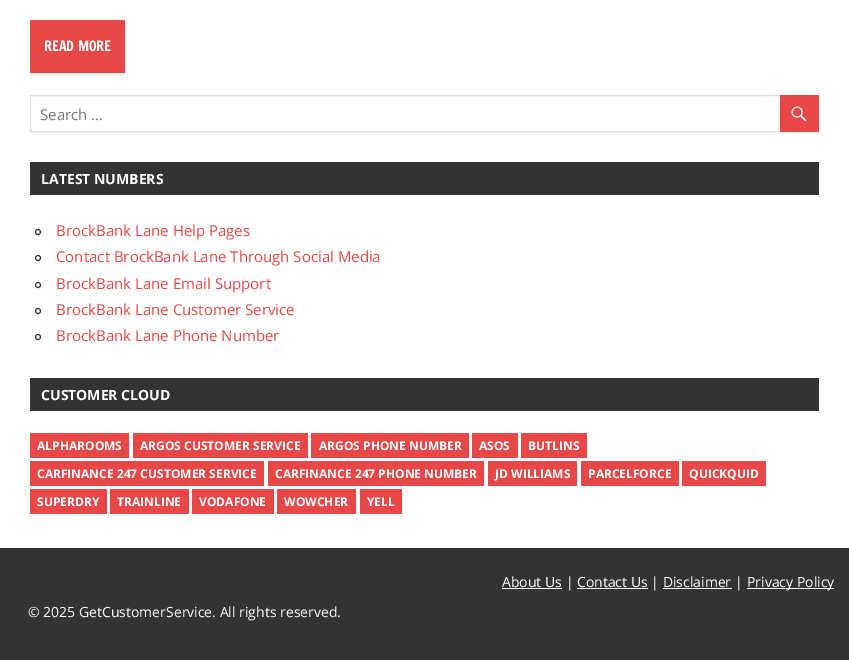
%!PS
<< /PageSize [849 660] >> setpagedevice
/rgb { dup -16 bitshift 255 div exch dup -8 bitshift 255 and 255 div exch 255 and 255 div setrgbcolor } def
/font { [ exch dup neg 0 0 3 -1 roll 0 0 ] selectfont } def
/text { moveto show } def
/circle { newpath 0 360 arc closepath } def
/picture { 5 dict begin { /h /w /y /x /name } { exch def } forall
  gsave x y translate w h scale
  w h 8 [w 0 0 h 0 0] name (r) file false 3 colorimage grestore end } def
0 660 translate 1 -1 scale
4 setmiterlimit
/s1 { /FrancoisOne-Regular 14 font 16#FFFFFF rgb } def
/s2 { /OpenSans-Regular 15 font 16#757575 rgb } def
/s3 { /OpenSans-Bold 14 font 16#FFFFFF rgb } def
/s4 { /OpenSans-Regular 15 font 16#E84747 rgb } def
/s5 { /OpenSans-Bold 12 font 16#FFFFFF rgb } def
/s6 { /OpenSans-Regular 14 font 16#FFFFFF rgb } def
16#FFFFFF rgb
0 0 849 660 rectfill
16#E84747 rgb
30 20 95 53 rectfill
s1
(READ MORE) 44 51 text
16#DDDDDD rgb
30.5 95.5 788 36 rectstroke
s2
(Search …) 40 120 text
16#E84747 rgb
780 95 39 37 rectfill
(pic1.raw) 791 106 16 16 picture
16#333333 rgb
30 162 789 33 rectfill
s3
(LATEST NUMBERS) 41 184 text
16#333333 rgb
38 232 2.5 circle stroke
s4
(BrockBank Lane Help Pages) 56 236 text
16#333333 rgb
38 258 2.5 circle stroke
s4
(Contact BrockBank Lane Through Social Media) 56 262 text
16#333333 rgb
38 285 2.5 circle stroke
s4
(BrockBank Lane Email Support) 56 289 text
16#333333 rgb
38 311 2.5 circle stroke
s4
(BrockBank Lane Customer Service) 56 315 text
16#333333 rgb
38 337 2.5 circle stroke
s4
(BrockBank Lane Phone Number) 56 341 text
16#333333 rgb
30 378 789 33 rectfill
s3
(CUSTOMER CLOUD) 41 400 text
16#E84747 rgb
30 433 99 25 rectfill
s5
(ALPHAROOMS) 37 450 text
16#E84747 rgb
133 433 175 25 rectfill
s5
(ARGOS CUSTOMER SERVICE) 140 450 text
16#E84747 rgb
311 433 158 25 rectfill
s5
(ARGOS PHONE NUMBER) 319 450 text
16#E84747 rgb
472 433 46 25 rectfill
s5
(ASOS) 479 450 text
16#E84747 rgb
521 433 66 25 rectfill
s5
(BUTLINS) 528 450 text
16#E84747 rgb
30 461 234 25 rectfill
s5
(CARFINANCE 247 CUSTOMER SERVICE) 37 478 text
16#E84747 rgb
268 461 216 25 rectfill
s5
(CARFINANCE 247 PHONE NUMBER) 275 478 text
16#E84747 rgb
488 461 89 25 rectfill
s5
(JD WILLIAMS) 495 478 text
16#E84747 rgb
581 461 98 25 rectfill
s5
(PARCELFORCE) 588 478 text
16#E84747 rgb
682 461 84 25 rectfill
s5
(QUICKQUID) 689 478 text
16#E84747 rgb
30 489 77 25 rectfill
s5
(SUPERDRY) 37 506 text
16#E84747 rgb
110 489 79 25 rectfill
s5
(TRAINLINE) 117 506 text
16#E84747 rgb
192 489 82 25 rectfill
s5
(VODAFONE) 199 506 text
16#E84747 rgb
277 489 79 25 rectfill
s5
(WOWCHER) 284 506 text
16#E84747 rgb
360 489 42 25 rectfill
s5
(YELL) 367 506 text
16#333333 rgb
0 548 849 112 rectfill
16#FFFFFF rgb
502 588 60 1 rectfill
s6
(About Us | Contact Us | Disclaimer |) 502 587 text
747 588 87 1 rectfill
(Privacy Policy) 747 587 text
577 588 71 1 rectfill
663 588 69 1 rectfill
(© 2025 GetCustomerService. All rights reserved.) 28 617 text
showpage
